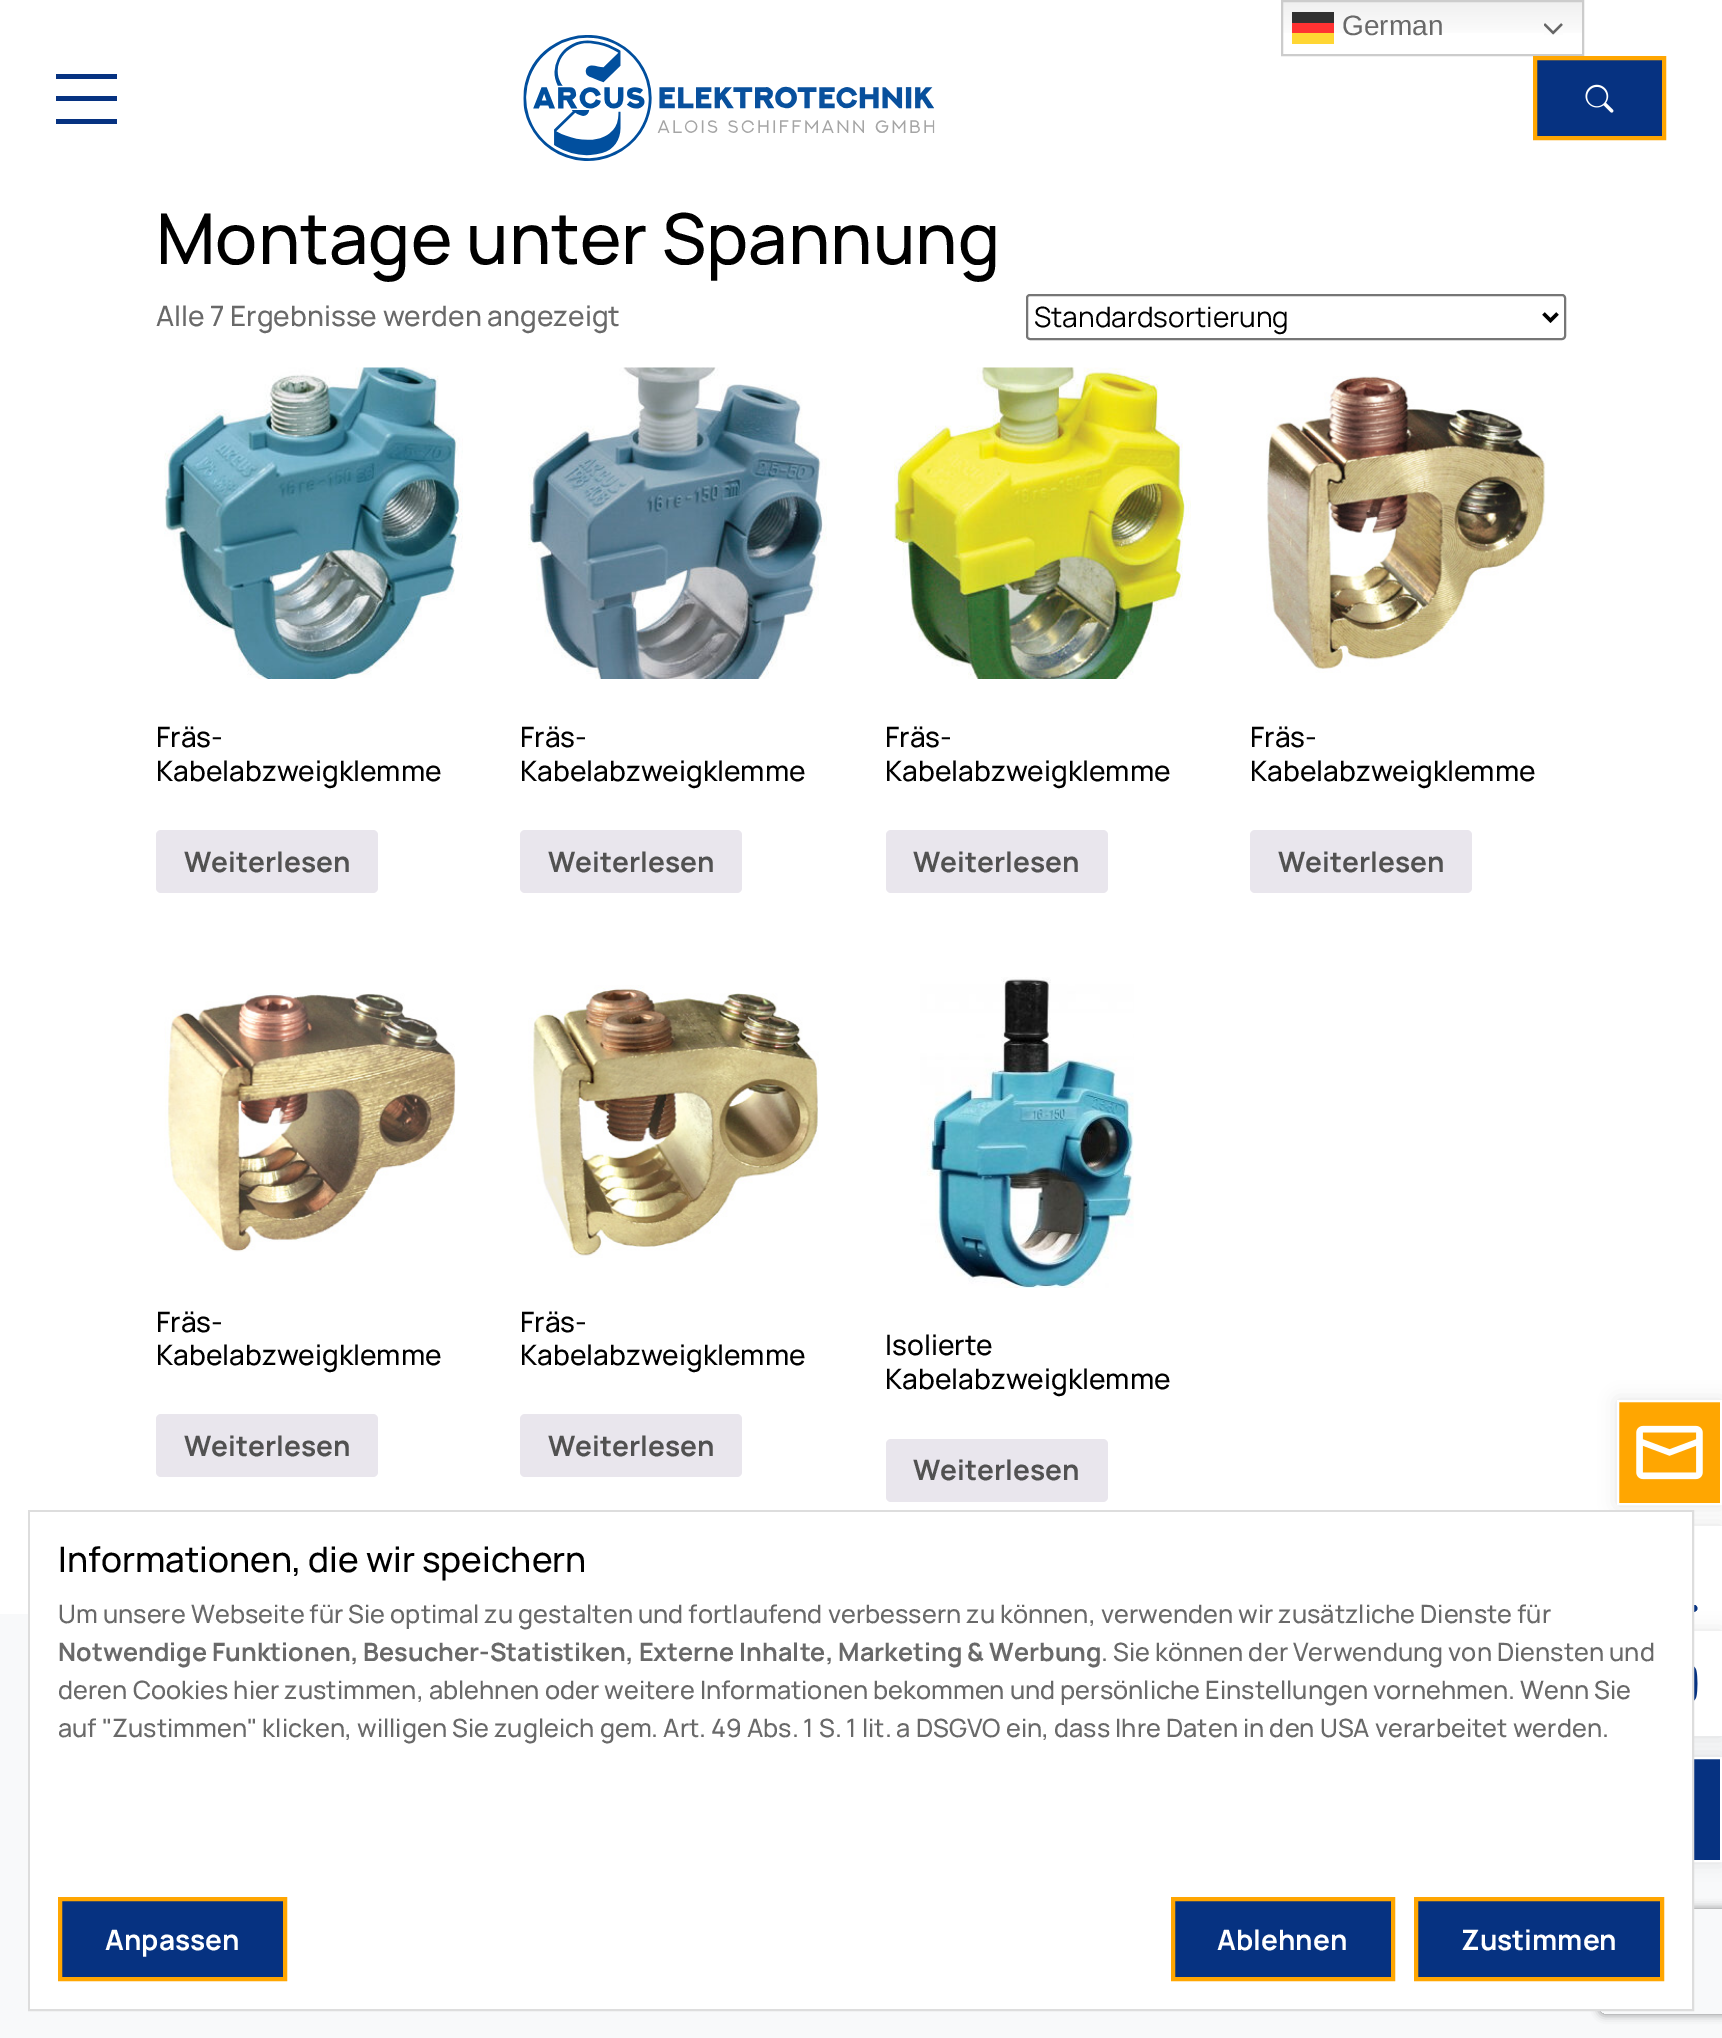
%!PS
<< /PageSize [1722 2038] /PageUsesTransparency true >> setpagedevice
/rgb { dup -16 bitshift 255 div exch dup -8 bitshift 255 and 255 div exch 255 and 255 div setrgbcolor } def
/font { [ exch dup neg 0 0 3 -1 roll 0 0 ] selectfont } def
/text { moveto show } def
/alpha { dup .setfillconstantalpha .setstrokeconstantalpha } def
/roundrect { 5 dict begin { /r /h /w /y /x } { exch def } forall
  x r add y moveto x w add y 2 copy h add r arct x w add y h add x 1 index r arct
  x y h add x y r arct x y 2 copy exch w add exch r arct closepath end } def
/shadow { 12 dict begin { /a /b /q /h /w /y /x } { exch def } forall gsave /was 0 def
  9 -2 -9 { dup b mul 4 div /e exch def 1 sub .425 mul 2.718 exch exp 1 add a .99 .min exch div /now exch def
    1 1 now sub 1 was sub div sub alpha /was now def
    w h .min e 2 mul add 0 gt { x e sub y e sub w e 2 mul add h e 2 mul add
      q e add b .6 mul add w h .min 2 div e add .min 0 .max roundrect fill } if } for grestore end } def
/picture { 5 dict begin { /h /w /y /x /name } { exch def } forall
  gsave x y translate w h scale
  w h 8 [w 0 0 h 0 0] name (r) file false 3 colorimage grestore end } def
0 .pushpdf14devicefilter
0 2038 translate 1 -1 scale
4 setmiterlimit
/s1 { /LiberationSans-Regular 28 font 16#696969 rgb } def
/s2 { /Manrope-Medium 70.25 font 16#000000 rgb } def
/s3 { /Manrope-Medium 28 font 16#696969 rgb } def
/s4 { /Manrope-Regular 28 font 16#000000 rgb } def
/s5 { /Manrope-Medium 28 font 16#000000 rgb } def
/s6 { /Manrope-Bold 28 font 16#515151 rgb } def
/s7 { /Manrope-Medium 35 font 16#000000 rgb } def
/s8 { /Manrope-Medium 25.2 font 16#696969 rgb } def
/s9 { /Manrope-Bold 25.2 font 16#696969 rgb } def
/s10 { /Manrope-Bold 28 font 16#FFFFFF rgb } def
16#FFFFFF rgb
0 0 1722 2038 rectfill
gsave 1283 2 moveto 1582 2 lineto 1582 33 lineto 1283 33 lineto closepath clip newpath
<< /ShadingType 2 /ColorSpace /DeviceRGB /Coords [1432 0 1432 56] /Extend [true true] /Function << /FunctionType 3 /Domain [0 1] /Functions [<< /FunctionType 2 /Domain [0 1] /C0 [0.937 0.937 0.937] /C1 [1 1 1] /N 1 >> << /FunctionType 2 /Domain [0 1] /C0 [1 1 1] /C1 [1 1 1] /N 1 >>] /Bounds [0.7] /Encode [0 1 0 1] >> >> shfill grestore
gsave 1292 23 moveto 1334 23 lineto 1334 33 lineto 1292 33 lineto closepath clip newpath
<< /ShadingType 2 /ColorSpace /DeviceRGB /Coords [1432 0 1432 56] /Extend [true true] /Function << /FunctionType 3 /Domain [0 1] /Functions [<< /FunctionType 2 /Domain [0 1] /C0 [0.988 0.188 0.188] /C1 [1 0.2 0.2] /N 1 >> << /FunctionType 2 /Domain [0 1] /C0 [1 0.2 0.2] /C1 [1 0.2 0.2] /N 1 >>] /Bounds [0.7] /Encode [0 1 0 1] >> >> shfill grestore
gsave 1292 12 moveto 1334 12 lineto 1334 23 lineto 1292 23 lineto closepath clip newpath
<< /ShadingType 2 /ColorSpace /DeviceRGB /Coords [1432 0 1432 56] /Extend [true true] /Function << /FunctionType 3 /Domain [0 1] /Functions [<< /FunctionType 2 /Domain [0 1] /C0 [0.188 0.188 0.188] /C1 [0.2 0.2 0.2] /N 1 >> << /FunctionType 2 /Domain [0 1] /C0 [0.2 0.2 0.2] /C1 [0.2 0.2 0.2] /N 1 >>] /Bounds [0.7] /Encode [0 1 0 1] >> >> shfill grestore
16#CCCCCC rgb
2 setlinewidth
1282 1 301 54 rectstroke
s1
(German) 1342 35 text
(pic1.raw) 1544 23 19 12 picture
16#FFD633 rgb
1292 33 42 11 rectfill
16#063281 rgb
56 74 61 5 rectfill
56 96 61 5 rectfill
56 119 61 5 rectfill
(pic2.raw) 523 35 412 126 picture
1535 58 moveto 1664 58 lineto 1664 138 lineto 1535 138 lineto closepath gsave fill grestore
16#FFA601 rgb
4 setlinewidth
stroke
(pic3.raw) 1585 84 29 29 picture
s2
(Montage unter Spannung) 156 264 text
s3
(Alle 7 Ergebnisse werden angezeigt) 156 326 text
16#767676 rgb
2 setlinewidth
1027 295 538 44 3 roundrect stroke
16#000000 rgb
3.5 setlinewidth
1543.5 313.5 moveto 1550.5 320.5 lineto 1557.5 313.5 lineto stroke
s4
(Standardsortierung) 1034 327 text
(pic4.raw) 164 367 299 312 picture
s5
(Fräs-) 156 747 text
(Kabelabzweigklemme) 156 781 text
16#E9E6ED rgb
156 830 222 63 5 roundrect fill
s6
(Weiterlesen) 184 872 text
(pic5.raw) 528 367 299 312 picture
s5
(Fräs-) 520 747 text
(Kabelabzweigklemme) 520 781 text
16#E9E6ED rgb
520 830 222 63 5 roundrect fill
s6
(Weiterlesen) 548 872 text
(pic6.raw) 894 367 297 312 picture
s5
(Fräs-) 885 747 text
(Kabelabzweigklemme) 885 781 text
16#E9E6ED rgb
886 830 222 63 5 roundrect fill
s6
(Weiterlesen) 913 872 text
(pic7.raw) 1266 376 280 297 picture
s5
(Fräs-) 1250 747 text
(Kabelabzweigklemme) 1250 781 text
16#E9E6ED rgb
1250 830 222 63 5 roundrect fill
s6
(Weiterlesen) 1278 872 text
(pic8.raw) 164 993 292 259 picture
s5
(Fräs-) 156 1332 text
(Kabelabzweigklemme) 156 1365 text
16#E9E6ED rgb
156 1414 222 63 5 roundrect fill
s6
(Weiterlesen) 184 1456 text
(pic9.raw) 528 985 291 273 picture
s5
(Fräs-) 520 1332 text
(Kabelabzweigklemme) 520 1365 text
16#E9E6ED rgb
520 1414 222 63 5 roundrect fill
s6
(Weiterlesen) 548 1456 text
(pic10.raw) 920 977 214 311 picture
s5
(Isolierte) 885 1355 text
(Kabelabzweigklemme) 885 1389 text
16#E9E6ED rgb
886 1439 222 63 5 roundrect fill
s6
(Weiterlesen) 913 1480 text
16#F8F9FA rgb
0 1614 1722 424 rectfill
16#000000 rgb
1617 1526 105 105 0 9 0.11 shadow
16#FFFFFF rgb
1694 1526 28 105 rectfill
16#000000 rgb
1617 1400 105 105 0 9 0.11 shadow
16#FFA601 rgb
1618 1401 moveto 1721 1401 lineto 1721 1504 lineto 1618 1504 lineto closepath gsave fill grestore
16#FFFFFF rgb
2 setlinewidth
stroke
(pic11.raw) 1636 1425 67 55 picture
16#063281 rgb
1645 1605 moveto 1695 1605 lineto 1698 1606 1698 1610 1696 1611 curveto 1694 1613 1686 1612 1686 1612 curveto 1645 1612 lineto 1640 1612 1640 1605 1645 1605 curveto closepath 1673 1584 moveto 1684 1573 lineto 1689 1578 lineto 1670 1598 lineto 1650 1578 lineto 1655 1573 lineto 1666 1584 lineto 1666 1545 lineto 1673 1545 lineto closepath eofill
16#000000 rgb
1617 1757 105 105 0 9 0.11 shadow
16#063281 rgb
1694 1759 26 101 rectfill
16#FFFFFF rgb
1618 1758 103 103 rectstroke
16#000000 rgb
1617 1631 105 105 0 9 0.11 shadow
16#FFFFFF rgb
1694 1631 28 105 rectfill
(pic12.raw) 1694 1666 4 35 picture
gsave
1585 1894 moveto 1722 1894 lineto 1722 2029 lineto 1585 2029 lineto closepath 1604 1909 moveto 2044 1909 lineto 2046 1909 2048 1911 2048 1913 curveto 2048 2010 lineto 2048 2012 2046 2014 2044 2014 curveto 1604 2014 lineto 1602 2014 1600 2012 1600 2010 curveto 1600 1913 lineto 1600 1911 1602 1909 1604 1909 curveto closepath eoclip newpath
16#808080 rgb
1600 1909 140 105 4 4.5 1 shadow
grestore
16#DDDDDD rgb
29 1511 1664 499 rectstroke
16#FFFFFF rgb
30 1512 1662 497 rectfill
s7
(Informationen, die wir speichern) 58 1572 text
s8
(Um unsere Webseite für Sie optimal zu gestalten und fortlaufend verbessern zu können, verwenden wir zusätzliche Dienste für) 58 1623 text
s9
(Notwendige Funktionen, Besucher-Statistiken, Externe Inhalte, Marketing & Werbung) 58 1661 text
s8
(. Sie können der Verwendung von Diensten und) 1101 1661 text
(deren Cookies hier zustimmen, ablehnen oder weitere Informationen bekommen und persönliche Einstellungen vornehmen. Wenn Sie) 58 1699 text
(auf "Zustimmen" klicken, willigen Sie zugleich gem. Art. 49 Abs. 1 S. 1 lit. a DSGVO ein, dass Ihre Daten in den USA verarbeitet werden.) 58 1737 text
16#063281 rgb
60 1899 moveto 285 1899 lineto 285 1979 lineto 60 1979 lineto closepath gsave fill grestore
16#FFA601 rgb
4 setlinewidth
stroke
s10
(Anpassen) 105 1950 text
16#063281 rgb
1173 1899 moveto 1393 1899 lineto 1393 1979 lineto 1173 1979 lineto closepath gsave fill grestore
16#FFA601 rgb
stroke
s10
(Ablehnen) 1217 1950 text
16#063281 rgb
1416 1899 moveto 1662 1899 lineto 1662 1979 lineto 1416 1979 lineto closepath gsave fill grestore
16#FFA601 rgb
stroke
s10
(Zustimmen) 1461 1950 text
.poppdf14devicefilter showpage
